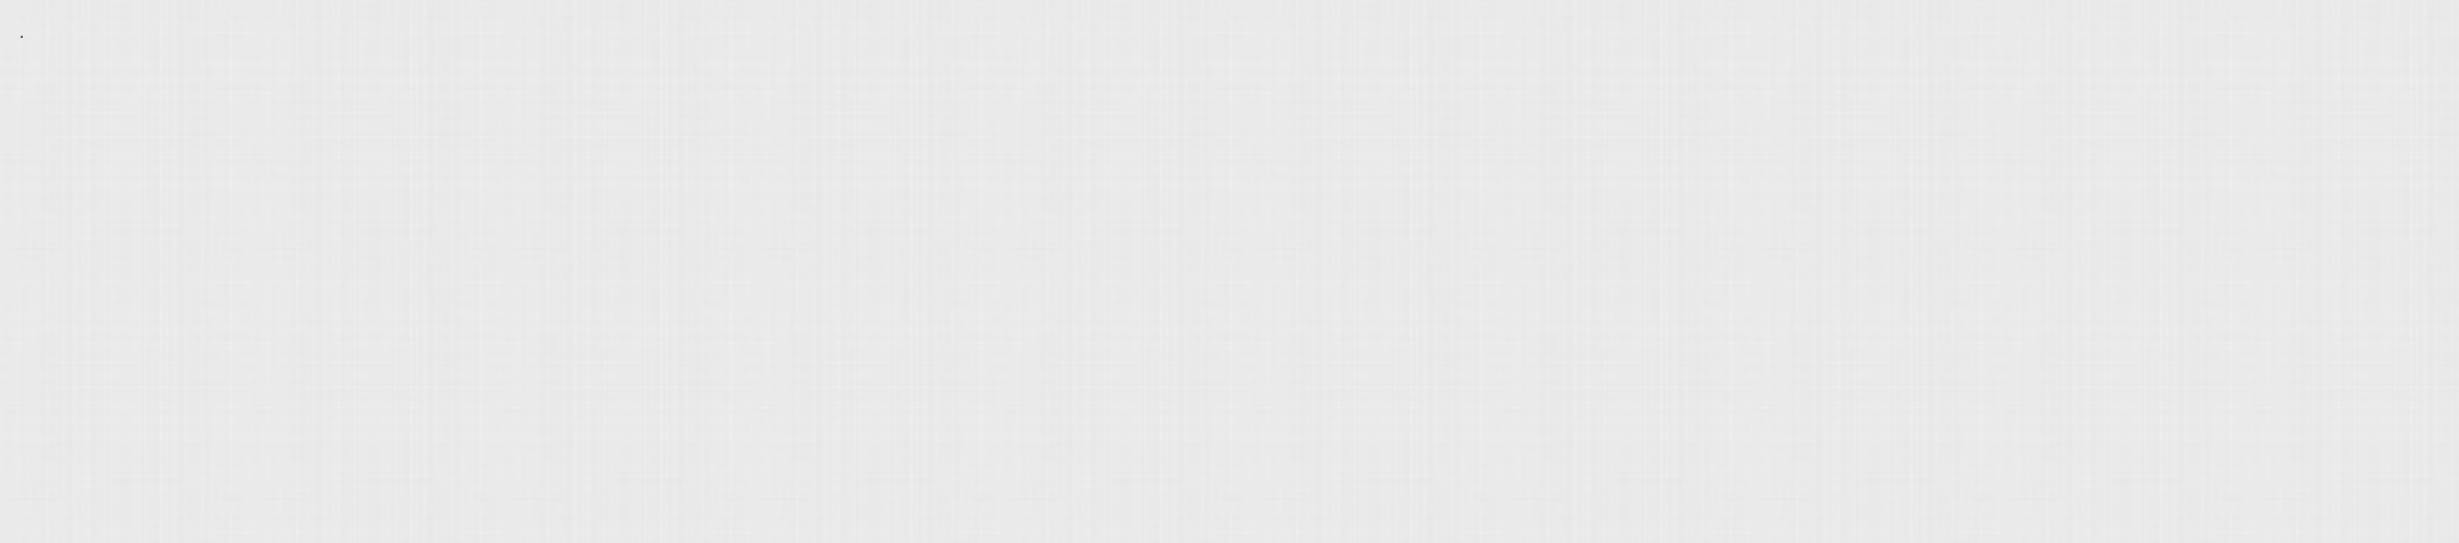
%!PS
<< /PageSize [2459 543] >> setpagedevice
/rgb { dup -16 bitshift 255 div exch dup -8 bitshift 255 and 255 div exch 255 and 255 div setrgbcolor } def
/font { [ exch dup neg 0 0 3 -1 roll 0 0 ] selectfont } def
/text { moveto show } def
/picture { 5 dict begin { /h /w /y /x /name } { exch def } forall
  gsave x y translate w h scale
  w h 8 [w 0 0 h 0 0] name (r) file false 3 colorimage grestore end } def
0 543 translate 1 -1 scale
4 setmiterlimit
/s1 { /LiberationSans-Regular 20 font 16#555555 rgb } def
16#FFFFFF rgb
0 0 2459 543 rectfill
(pic1.raw) 0 0 2459 543 picture
s1
(.) 19 38 text
showpage
